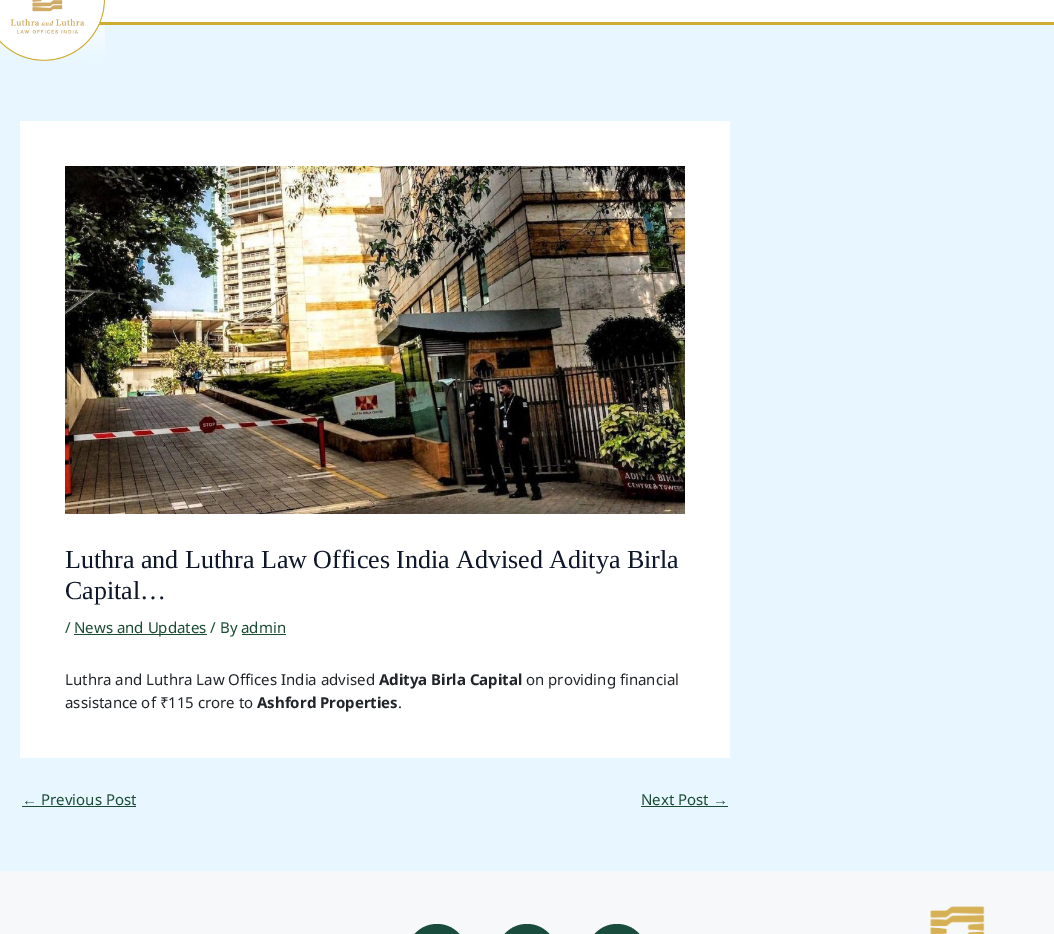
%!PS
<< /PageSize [1054 934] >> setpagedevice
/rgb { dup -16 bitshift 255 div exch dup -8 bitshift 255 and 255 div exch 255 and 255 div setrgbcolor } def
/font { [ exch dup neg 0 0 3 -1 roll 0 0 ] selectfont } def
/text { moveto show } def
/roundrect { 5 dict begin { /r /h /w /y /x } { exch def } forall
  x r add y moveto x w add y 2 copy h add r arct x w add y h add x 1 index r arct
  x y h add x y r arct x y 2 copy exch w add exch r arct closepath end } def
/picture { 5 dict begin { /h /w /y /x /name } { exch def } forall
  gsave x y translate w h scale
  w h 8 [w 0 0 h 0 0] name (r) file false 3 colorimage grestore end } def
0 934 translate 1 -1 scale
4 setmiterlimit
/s1 { /LiberationSerif-Regular 26 font 16#0F172A rgb } def
/s2 { /NotoSans-Regular 15 font 16#1A4C33 rgb } def
/s3 { /NotoSans-Regular 15 font 16#212529 rgb } def
/s4 { /NotoSans-Bold 15 font 16#212529 rgb } def
/s5 { /LiberationSans-Regular 15 font 16#1A4C33 rgb } def
16#E7F6FF rgb
0 0 1054 934 rectfill
gsave 0 25 moveto 105 25 lineto 105 56 lineto 0 56 lineto closepath clip newpath
<< /ShadingType 2 /ColorSpace /DeviceRGB /Coords [52 -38 53 61] /Extend [true true] /Function << /FunctionType 3 /Domain [0 1] /Functions [<< /FunctionType 2 /Domain [0 1] /C0 [1 1 1] /C1 [1 1 1] /N 1 >> << /FunctionType 2 /Domain [0 1] /C0 [1 1 1] /C1 [0.906 0.965 1] /N 1 >>] /Bounds [0.5] /Encode [0 1 0 1] >> >> shfill grestore
16#FFFFFF rgb
100 0 954 22 rectfill
16#CFAC33 rgb
95 22 959 3 rectfill
(pic1.raw) 0 0 105 61 picture
16#FFFFFF rgb
20 121 710 637 rectfill
(pic2.raw) 65 166 620 348 picture
s1
(Luthra and Luthra Law Offices India Advised Aditya Birla) 65 568 text
(Capital…) 65 599 text
s2
(/) 65 633 text
74 634 133 1 rectfill
(News and Updates / By admin) 74 633 text
242 634 44 1 rectfill
s3
(Luthra and Luthra Law Offices India advised) 65 685 text
s4
(Aditya Birla Capital) 379 685 text
s3
(on providing financial) 526 685 text
(assistance of ₹115 crore to) 65 708 text
s4
(Ashford Properties) 257 708 text
s3
(.) 398 708 text
s5
(←) 22 805 text
22 806 114 1 rectfill
s2
(Previous Post) 41 805 text
(Next Post) 641 805 text
641 806 87 1 rectfill
s5
(→) 713 805 text
16#F7F8FA rgb
0 871 1054 63 rectfill
(pic3.raw) 930 906 55 28 picture
16#1A4C3D rgb
407 924 60 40 30 roundrect fill
497 924 60 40 30 roundrect fill
587 924 60 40 30 roundrect fill
showpage
